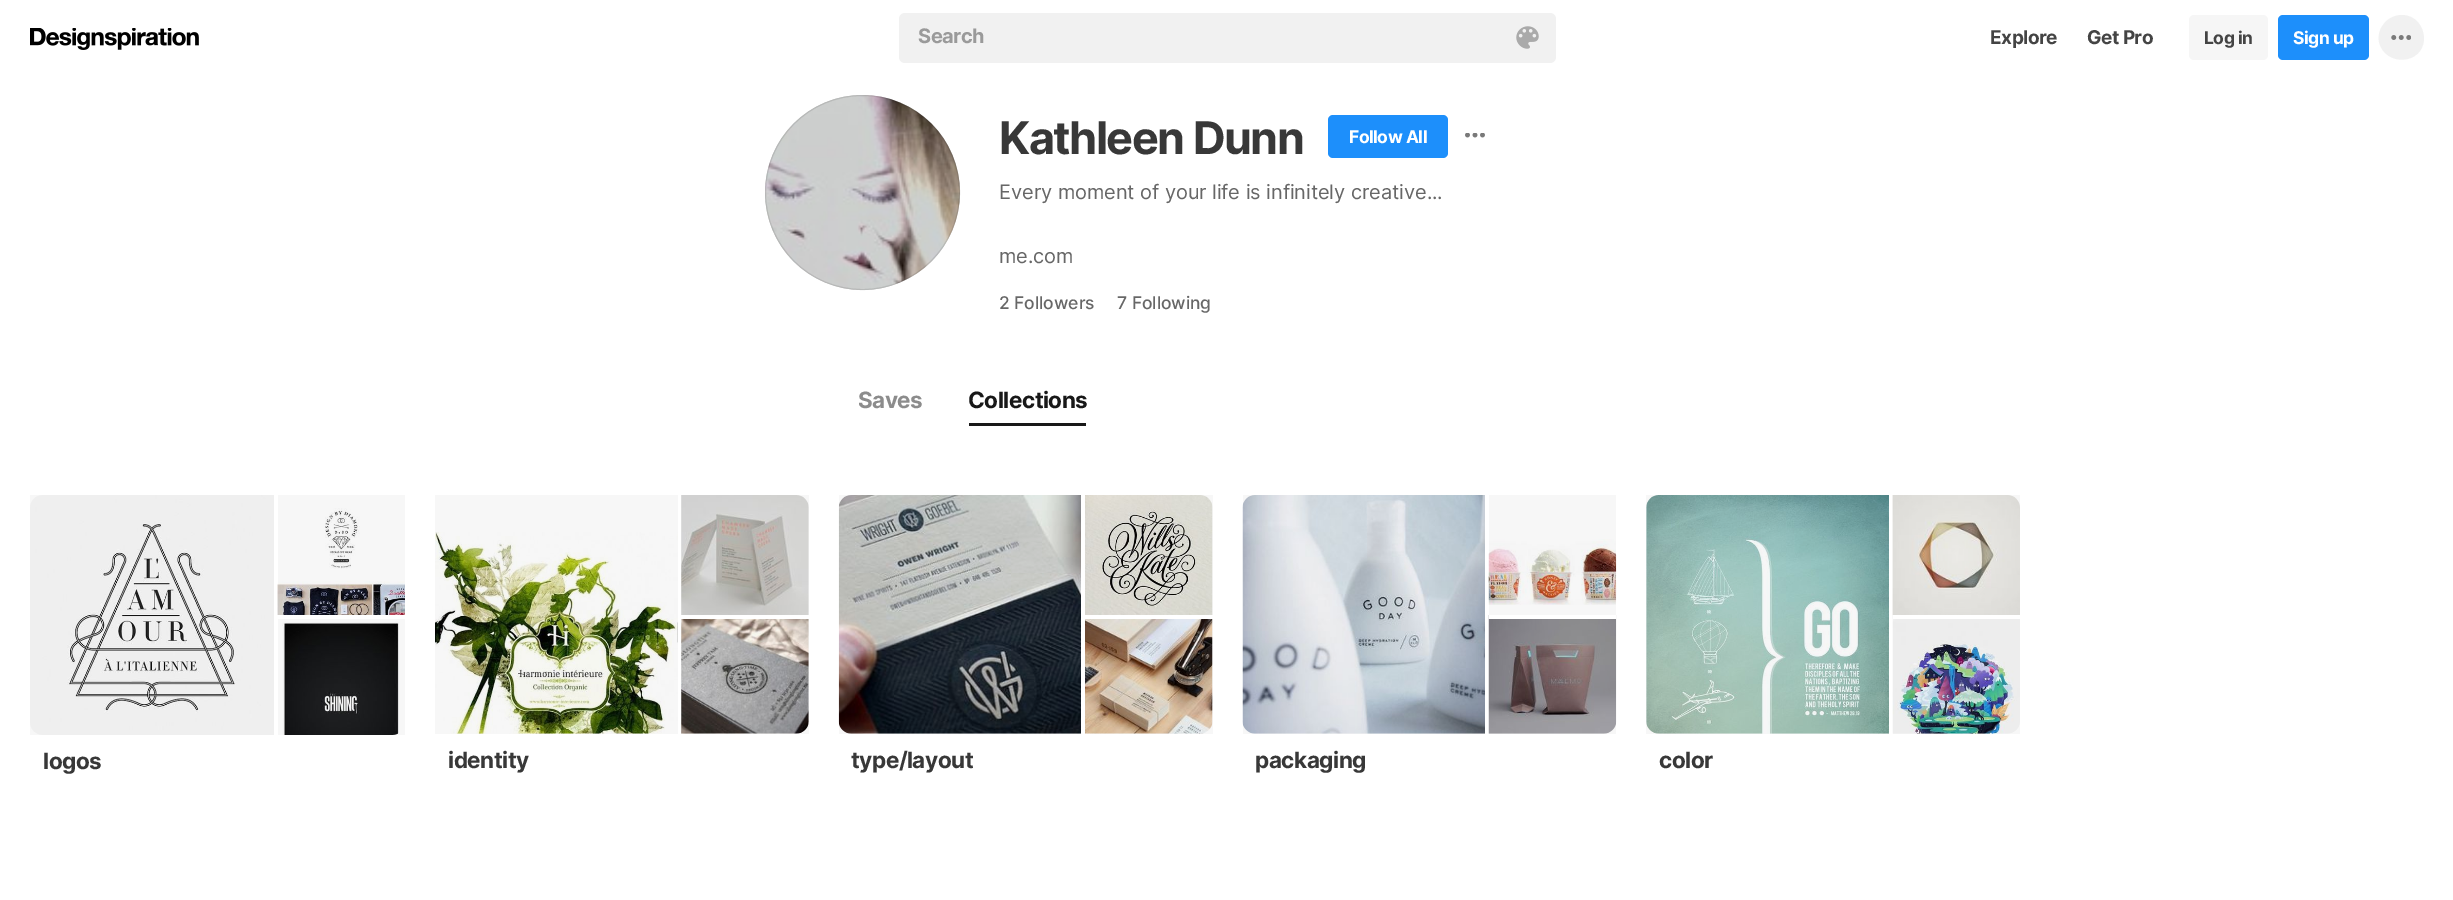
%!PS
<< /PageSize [2453 900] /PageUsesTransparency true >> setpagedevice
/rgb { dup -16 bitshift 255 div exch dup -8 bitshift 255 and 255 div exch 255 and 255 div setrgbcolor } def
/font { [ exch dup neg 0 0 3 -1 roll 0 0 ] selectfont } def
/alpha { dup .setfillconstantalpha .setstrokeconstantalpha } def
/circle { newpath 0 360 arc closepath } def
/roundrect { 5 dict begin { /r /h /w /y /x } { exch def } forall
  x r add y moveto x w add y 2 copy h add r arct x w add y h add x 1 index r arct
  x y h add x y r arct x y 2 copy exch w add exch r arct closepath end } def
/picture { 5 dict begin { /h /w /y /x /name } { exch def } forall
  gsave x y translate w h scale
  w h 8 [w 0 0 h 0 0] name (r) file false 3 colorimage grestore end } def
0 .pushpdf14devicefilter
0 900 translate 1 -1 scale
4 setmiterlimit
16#FFFFFF rgb
0 0 2453 900 rectfill
(pic1.raw) 30 28 169 22 picture
16#F1F1F1 rgb
899 13 657 50 6 roundrect fill
/Inter-Bold 20 font
16#9A9A9A rgb
918 43 moveto -0.5 0 (Search) ashow
(pic2.raw) 1516 26 23 23 picture
/Inter-Bold 19 font
16#444444 rgb
1990 44 moveto -0.5 0 (Explore) ashow
2087 44 moveto -0.5 0 (Get Pro) ashow
16#F6F6F6 rgb
2189 15 79 45 5 roundrect fill
/Inter-Bold 17.5 font
16#444444 rgb
2204 44 moveto -0.5 0 (Log in) ashow
16#1D8FFB rgb
2278 15 91 45 5 roundrect fill
16#FFFFFF rgb
2293 44 moveto -0.5 0 (Sign up) ashow
16#F1F1F1 rgb
2402 15 moveto 2415 15 2424 26 2424 39 curveto 2423 65 2385 67 2379 42 curveto 2378 36 2379 30 2383 25 curveto 2387 19 2394 15 2402 15 curveto closepath fill
(pic3.raw) 2391 35 20 5 picture
16#C9C8C7 rgb
862.5 192.5 97.5 circle fill
(pic4.raw) 765 95 195 195 picture
0.1 alpha
16#000000 rgb
862.5 192.5 97 circle stroke
/Inter-Bold 45 font
1 alpha
16#383838 rgb
999 154 moveto -1.5 0 (Kathleen Dunn) ashow
16#1D8FFB rgb
1328 115 120 43 5 roundrect fill
/Inter-Bold 17.5 font
16#FFFFFF rgb
1349 143 moveto -0.5 0 (Follow All) ashow
(pic5.raw) 1465 133 20 5 picture
/Inter-Regular 20 font
16#676767 rgb
999 199 moveto -0.07 0 (Every moment of your life is infinitely creative...) ashow
999 263 moveto -0.07 0 (me.com) ashow
/Inter-Medium 17.5 font
999 309 moveto -0.07 0 (2 Followers) ashow
1117 309 moveto -0.07 0 (7 Following) ashow
/Inter-Bold 22.5 font
16#8C8C8C rgb
858 408 moveto -0.5 0 (Saves) ashow
16#181818 rgb
968 408 moveto -0.5 0 (Collections) ashow
969 423 117 3 rectfill
(pic6.raw) 30 495 244 240 picture
0.03 alpha
16#000000 rgb
30 495 244 240 rectfill
1 alpha
(pic7.raw) 277 508 128 107 picture
0.03 alpha
278 495 127 120 rectfill
1 alpha
(pic8.raw) 282 619 117 116 picture
0.03 alpha
278 619 127 116 rectfill
1 alpha
16#383838 rgb
43 769 moveto -0.5 0 (logos) ashow
(pic9.raw) 435 532 243 202 picture
0.03 alpha
16#000000 rgb
435 495 243 239 rectfill
1 alpha
(pic10.raw) 681 495 128 120 picture
0.03 alpha
681 495 128 120 rectfill
1 alpha
(pic11.raw) 681 619 128 115 picture
0.03 alpha
681 619 128 115 rectfill
1 alpha
16#383838 rgb
448 768 moveto -0.5 0 (identity) ashow
(pic12.raw) 838 495 243 239 picture
0.03 alpha
16#000000 rgb
839 495 242 239 rectfill
1 alpha
(pic13.raw) 1085 495 128 120 picture
0.03 alpha
1085 495 128 120 rectfill
1 alpha
(pic14.raw) 1085 619 128 115 picture
0.03 alpha
1085 619 128 115 rectfill
1 alpha
16#383838 rgb
851 768 moveto -0.5 0 (type/layout) ashow
(pic15.raw) 1242 495 243 239 picture
0.03 alpha
16#000000 rgb
1243 495 242 239 rectfill
1 alpha
(pic16.raw) 1488 539 129 66 picture
0.03 alpha
1489 495 127 120 rectfill
1 alpha
(pic17.raw) 1488 615 129 119 picture
16#FFFFFF rgb
1489 615 127 4 rectfill
0.03 alpha
16#000000 rgb
1489 619 127 115 rectfill
1 alpha
16#383838 rgb
1255 768 moveto -0.5 0 (packaging) ashow
(pic18.raw) 1646 495 243 239 picture
0.03 alpha
16#000000 rgb
1646 495 243 239 rectfill
1 alpha
(pic19.raw) 1892 495 128 120 picture
0.03 alpha
1893 495 127 120 rectfill
1 alpha
(pic20.raw) 1892 615 128 119 picture
16#FFFFFF rgb
1893 615 127 4 rectfill
0.03 alpha
16#000000 rgb
1893 619 127 115 rectfill
1 alpha
16#383838 rgb
1659 768 moveto -0.5 0 (color) ashow
.poppdf14devicefilter showpage
